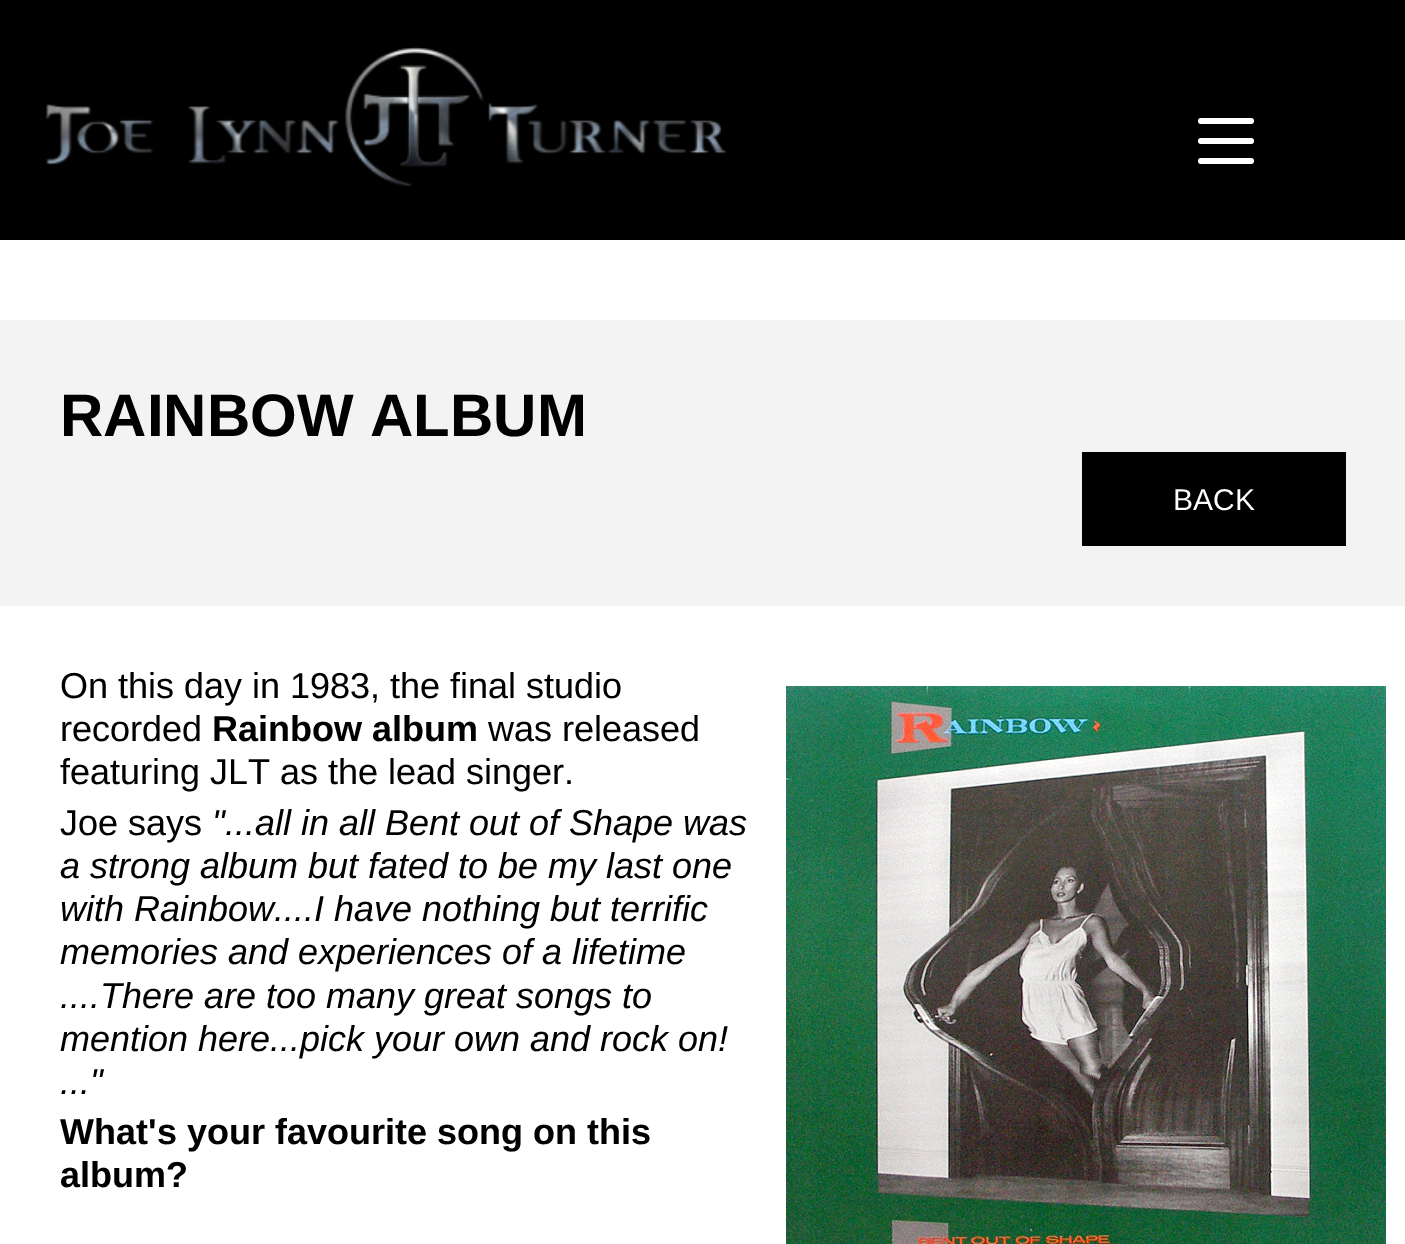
%!PS
<< /PageSize [1405 1244] >> setpagedevice
/rgb { dup -16 bitshift 255 div exch dup -8 bitshift 255 and 255 div exch 255 and 255 div setrgbcolor } def
/font { [ exch dup neg 0 0 3 -1 roll 0 0 ] selectfont } def
/text { moveto show } def
/roundrect { 5 dict begin { /r /h /w /y /x } { exch def } forall
  x r add y moveto x w add y 2 copy h add r arct x w add y h add x 1 index r arct
  x y h add x y r arct x y 2 copy exch w add exch r arct closepath end } def
/picture { 5 dict begin { /h /w /y /x /name } { exch def } forall
  gsave x y translate w h scale
  w h 8 [w 0 0 h 0 0] name (r) file false 3 colorimage grestore end } def
0 1244 translate 1 -1 scale
4 setmiterlimit
/s1 { /LiberationSans-Bold 60 font 16#000000 rgb } def
/s2 { /LiberationSans-Regular 30 font 16#FFFFFF rgb } def
/s3 { /LiberationSans-Regular 36 font 16#000000 rgb } def
/s4 { /LiberationSans-Bold 36 font 16#000000 rgb } def
/s5 { /LiberationSans-Italic 36 font 16#000000 rgb } def
16#FFFFFF rgb
0 0 1405 1244 rectfill
16#000000 rgb
0 0 1405 240 rectfill
(pic1.raw) 46 47 681 140 picture
16#FFFFFF rgb
1198 118 56 6 3 roundrect fill
1198 138 56 6 3 roundrect fill
1198 158 56 6 3 roundrect fill
16#F3F3F3 rgb
0 320 1405 286 rectfill
s1
(RAINBOW ALBUM) 60 436 text
1082 452 264 94 rectfill
s2
(BACK) 1173 510 text
s3
(On this day in 1983, the final studio) 60 698 text
(pic2.raw) 786 686 600 558 picture
(recorded) 60 741 text
s4
(Rainbow album) 212 741 text
s3
(was released) 488 741 text
(featuring JLT as the lead singer.) 60 784 text
(Joe says) 60 835 text
s5
("...all in all Bent out of Shape was) 212 835 text
(a strong album but fated to be my last one) 60 878 text
(with Rainbow....I have nothing but terrific) 60 921 text
(memories and experiences of a lifetime) 60 964 text
(....There are too many great songs to) 60 1008 text
(mention here...pick your own and rock on!) 60 1051 text
(...") 60 1094 text
s4
(What's your favourite song on this) 60 1144 text
(album?) 60 1187 text
showpage
